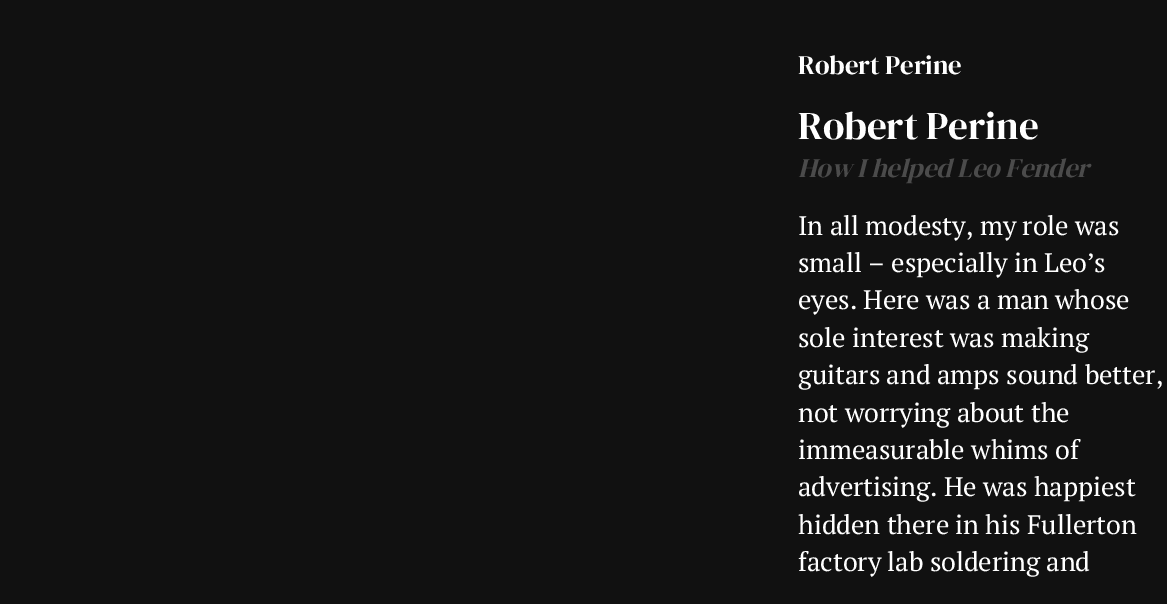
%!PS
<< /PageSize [1167 604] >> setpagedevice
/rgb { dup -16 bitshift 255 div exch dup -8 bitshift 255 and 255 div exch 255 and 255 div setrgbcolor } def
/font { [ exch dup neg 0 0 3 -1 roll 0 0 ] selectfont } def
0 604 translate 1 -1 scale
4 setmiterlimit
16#111111 rgb
0 0 1167 604 rectfill
/DMSerifDisplay-Regular 26.75 font
16#FFFFFF rgb
798 74 moveto -0.1 0 (Robert Perine) ashow
/DMSerifDisplay-Regular 39.25 font
798 139 moveto -0.1 0 (Robert Perine) ashow
/DMSerifDisplay-Italic 26.75 font
16#4B4B4B rgb
798 177 moveto -0.1 0 (How I helped Leo Fender) ashow
/PTSerif-Regular 26.75 font
16#FFFFFF rgb
798 235 moveto -0.1 0 (In all modesty, my role was) ashow
798 272 moveto -0.1 0 (small – especially in Leo’s) ashow
798 309 moveto -0.1 0 (eyes. Here was a man whose) ashow
798 347 moveto -0.1 0 (sole interest was making) ashow
798 384 moveto -0.1 0 (guitars and amps sound better,) ashow
798 422 moveto -0.1 0 (not worrying about the) ashow
798 459 moveto -0.1 0 (immeasurable whims of) ashow
798 496 moveto -0.1 0 (advertising. He was happiest) ashow
798 534 moveto -0.1 0 (hidden there in his Fullerton) ashow
798 571 moveto -0.1 0 (factory lab soldering and) ashow
showpage
